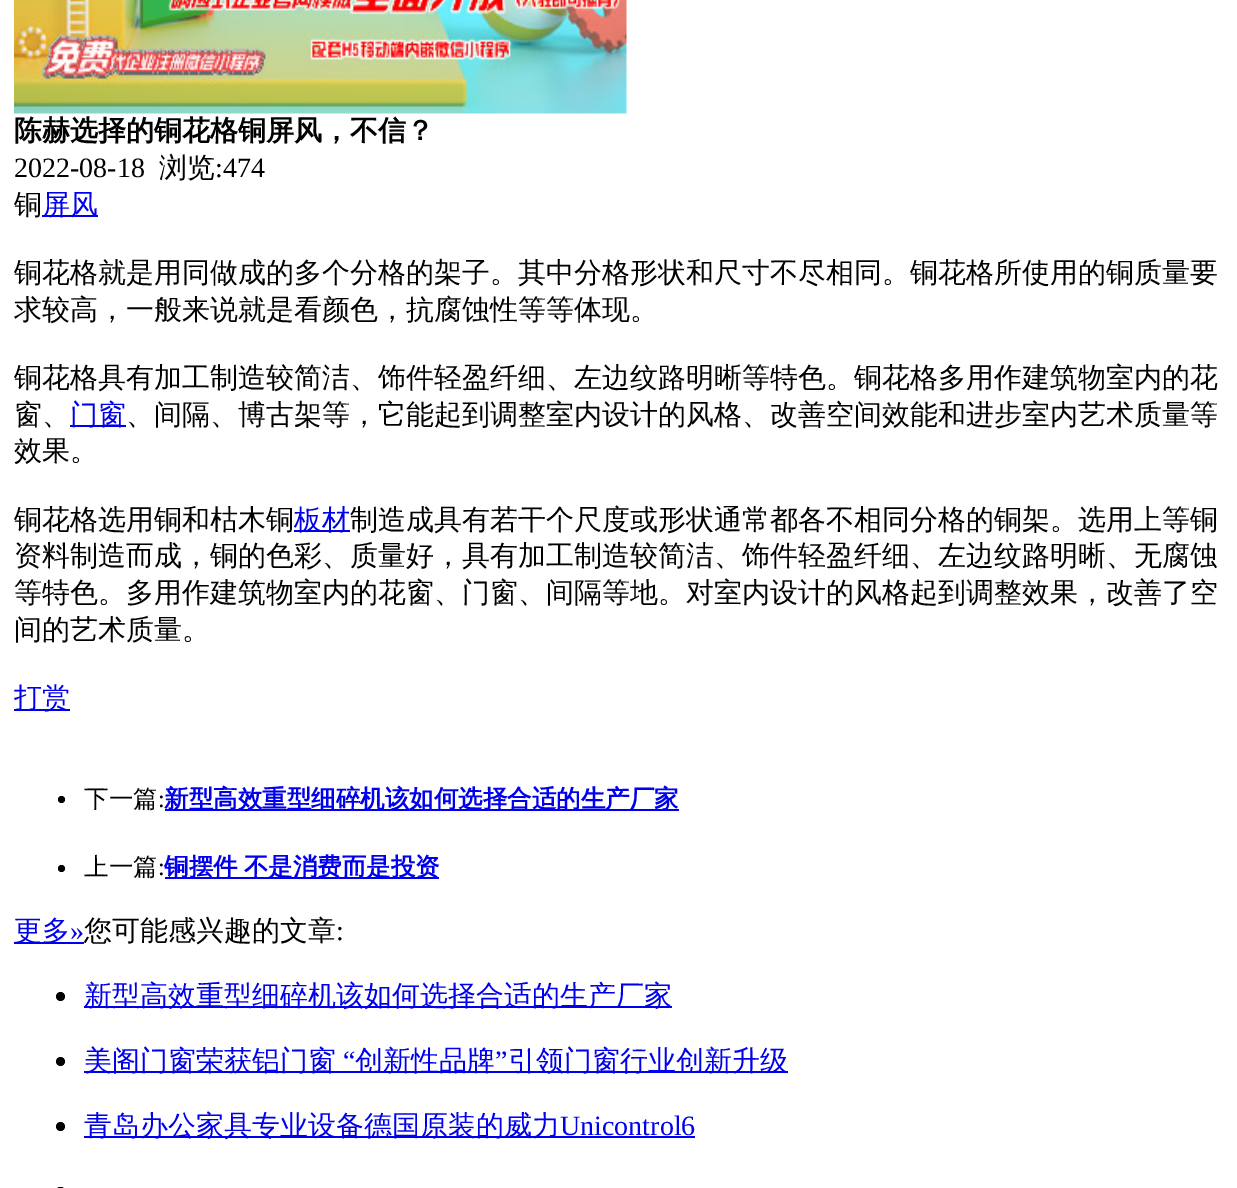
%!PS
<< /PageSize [1237 1188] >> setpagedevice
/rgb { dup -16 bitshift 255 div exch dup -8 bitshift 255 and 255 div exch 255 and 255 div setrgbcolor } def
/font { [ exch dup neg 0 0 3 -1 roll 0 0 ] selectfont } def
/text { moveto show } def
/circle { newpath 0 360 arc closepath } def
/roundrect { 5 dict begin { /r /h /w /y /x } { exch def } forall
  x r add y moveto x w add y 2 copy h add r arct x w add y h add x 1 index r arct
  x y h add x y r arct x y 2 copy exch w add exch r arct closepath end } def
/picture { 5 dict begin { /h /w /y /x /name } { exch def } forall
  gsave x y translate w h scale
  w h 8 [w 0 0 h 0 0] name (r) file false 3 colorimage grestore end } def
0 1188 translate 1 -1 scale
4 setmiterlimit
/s1 { /WenQuanYiZenHei-Bold 28 font 16#000000 rgb } def
/s2 { /LiberationSerif-Regular 28 font 16#000000 rgb } def
/s3 { /WenQuanYiZenHei-Medium 28 font 16#000000 rgb } def
/s4 { /WenQuanYiZenHei-Medium 28 font 16#0000EE rgb } def
/s5 { /WenQuanYiZenHei-Medium 24.5 font 16#000000 rgb } def
/s6 { /LiberationSerif-Regular 24.5 font 16#000000 rgb } def
/s7 { /WenQuanYiZenHei-Bold 24.5 font 16#0000EE rgb } def
/s8 { /LiberationSerif-Regular 28 font 16#0000EE rgb } def
16#FFFFFF rgb
0 0 1237 1188 rectfill
(pic1.raw) 14 0 613 114 picture
s1
(陈赫选择的铜花格铜屏风，不信？) 14 140 text
s2
(2022-08-18) 14 177 text
s3
(浏览) 159 177 text
s2
(:474) 215 177 text
s3
(铜) 14 214 text
16#0000EE rgb
42 215 56 2 rectfill
(屏风) 42 214 text
s3
(铜花格就是用同做成的多个分格的架子。其中分格形状和尺寸不尽相同。铜花格所使用的铜质量要) 14 282 text
(求较高，一般来说就是看颜色，抗腐蚀性等等体现。) 14 319 text
(铜花格具有加工制造较简洁、饰件轻盈纤细、左边纹路明晰等特色。铜花格多用作建筑物室内的花) 14 387 text
(窗、) 14 424 text
16#0000EE rgb
70 425 56 2 rectfill
(门窗) 70 424 text
s3
(、间隔、博古架等，它能起到调整室内设计的风格、改善空间效能和进步室内艺术质量等) 126 424 text
(效果。) 14 460 text
(铜花格选用铜和枯木铜) 14 529 text
16#0000EE rgb
294 530 56 2 rectfill
(板材) 294 529 text
s3
(制造成具有若干个尺度或形状通常都各不相同分格的铜架。选用上等铜) 350 529 text
(资料制造而成，铜的色彩、质量好，具有加工制造较简洁、饰件轻盈纤细、左边纹路明晰、无腐蚀) 14 565 text
(等特色。多用作建筑物室内的花窗、门窗、间隔等地。对室内设计的风格起到调整效果，改善了空) 14 602 text
(间的艺术质量。) 14 639 text
16#0000EE rgb
14 709 56 2 rectfill
(打赏) 14 707 text
16#000000 rgb
61.5 799.5 3.5 circle fill
s5
(下一篇) 84 807 text
s6
(:) 158 807 text
16#0000EE rgb
165 809 514 2 rectfill
s7
(新型高效重型细碎机该如何选择合适的生产厂家) 164 807 text
16#000000 rgb
61.5 868.5 3.5 circle fill
s5
(上一篇) 84 875 text
s6
(:) 158 875 text
16#0000EE rgb
165 877 274 2 rectfill
/WenQuanYiZenHei-Bold 24.5 font
164 875 moveto -1 0 32 (铜摆件 不是消费而是投资) widthshow
14 942 70 2 rectfill
s4
(更多) 14 940 text
s8
(») 70 940 text
s3
(您可能感兴趣的文章) 84 940 text
s2
(:) 336 940 text
60.5 996.5 4.5 circle fill
16#0000EE rgb
84 1006 588 2 rectfill
s4
(新型高效重型细碎机该如何选择合适的生产厂家) 84 1005 text
84 1071 704 2 rectfill
(美阁门窗荣获铝门窗) 84 1070 text
s8
(“) 343 1070 text
s4
(创新性品牌) 355 1070 text
s8
(”) 495 1070 text
s4
(引领门窗行业创新升级) 508 1070 text
16#000000 rgb
60.5 1061.5 4.5 circle fill
60.5 1126.5 4.5 circle fill
16#0000EE rgb
84 1136 611 2 rectfill
(青岛办公家具专业设备德国原装的威力) 84 1135 text
s8
(Unicontrol6) 560 1135 text
16#000000 rgb
56 1187 9 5 4 roundrect fill
showpage
